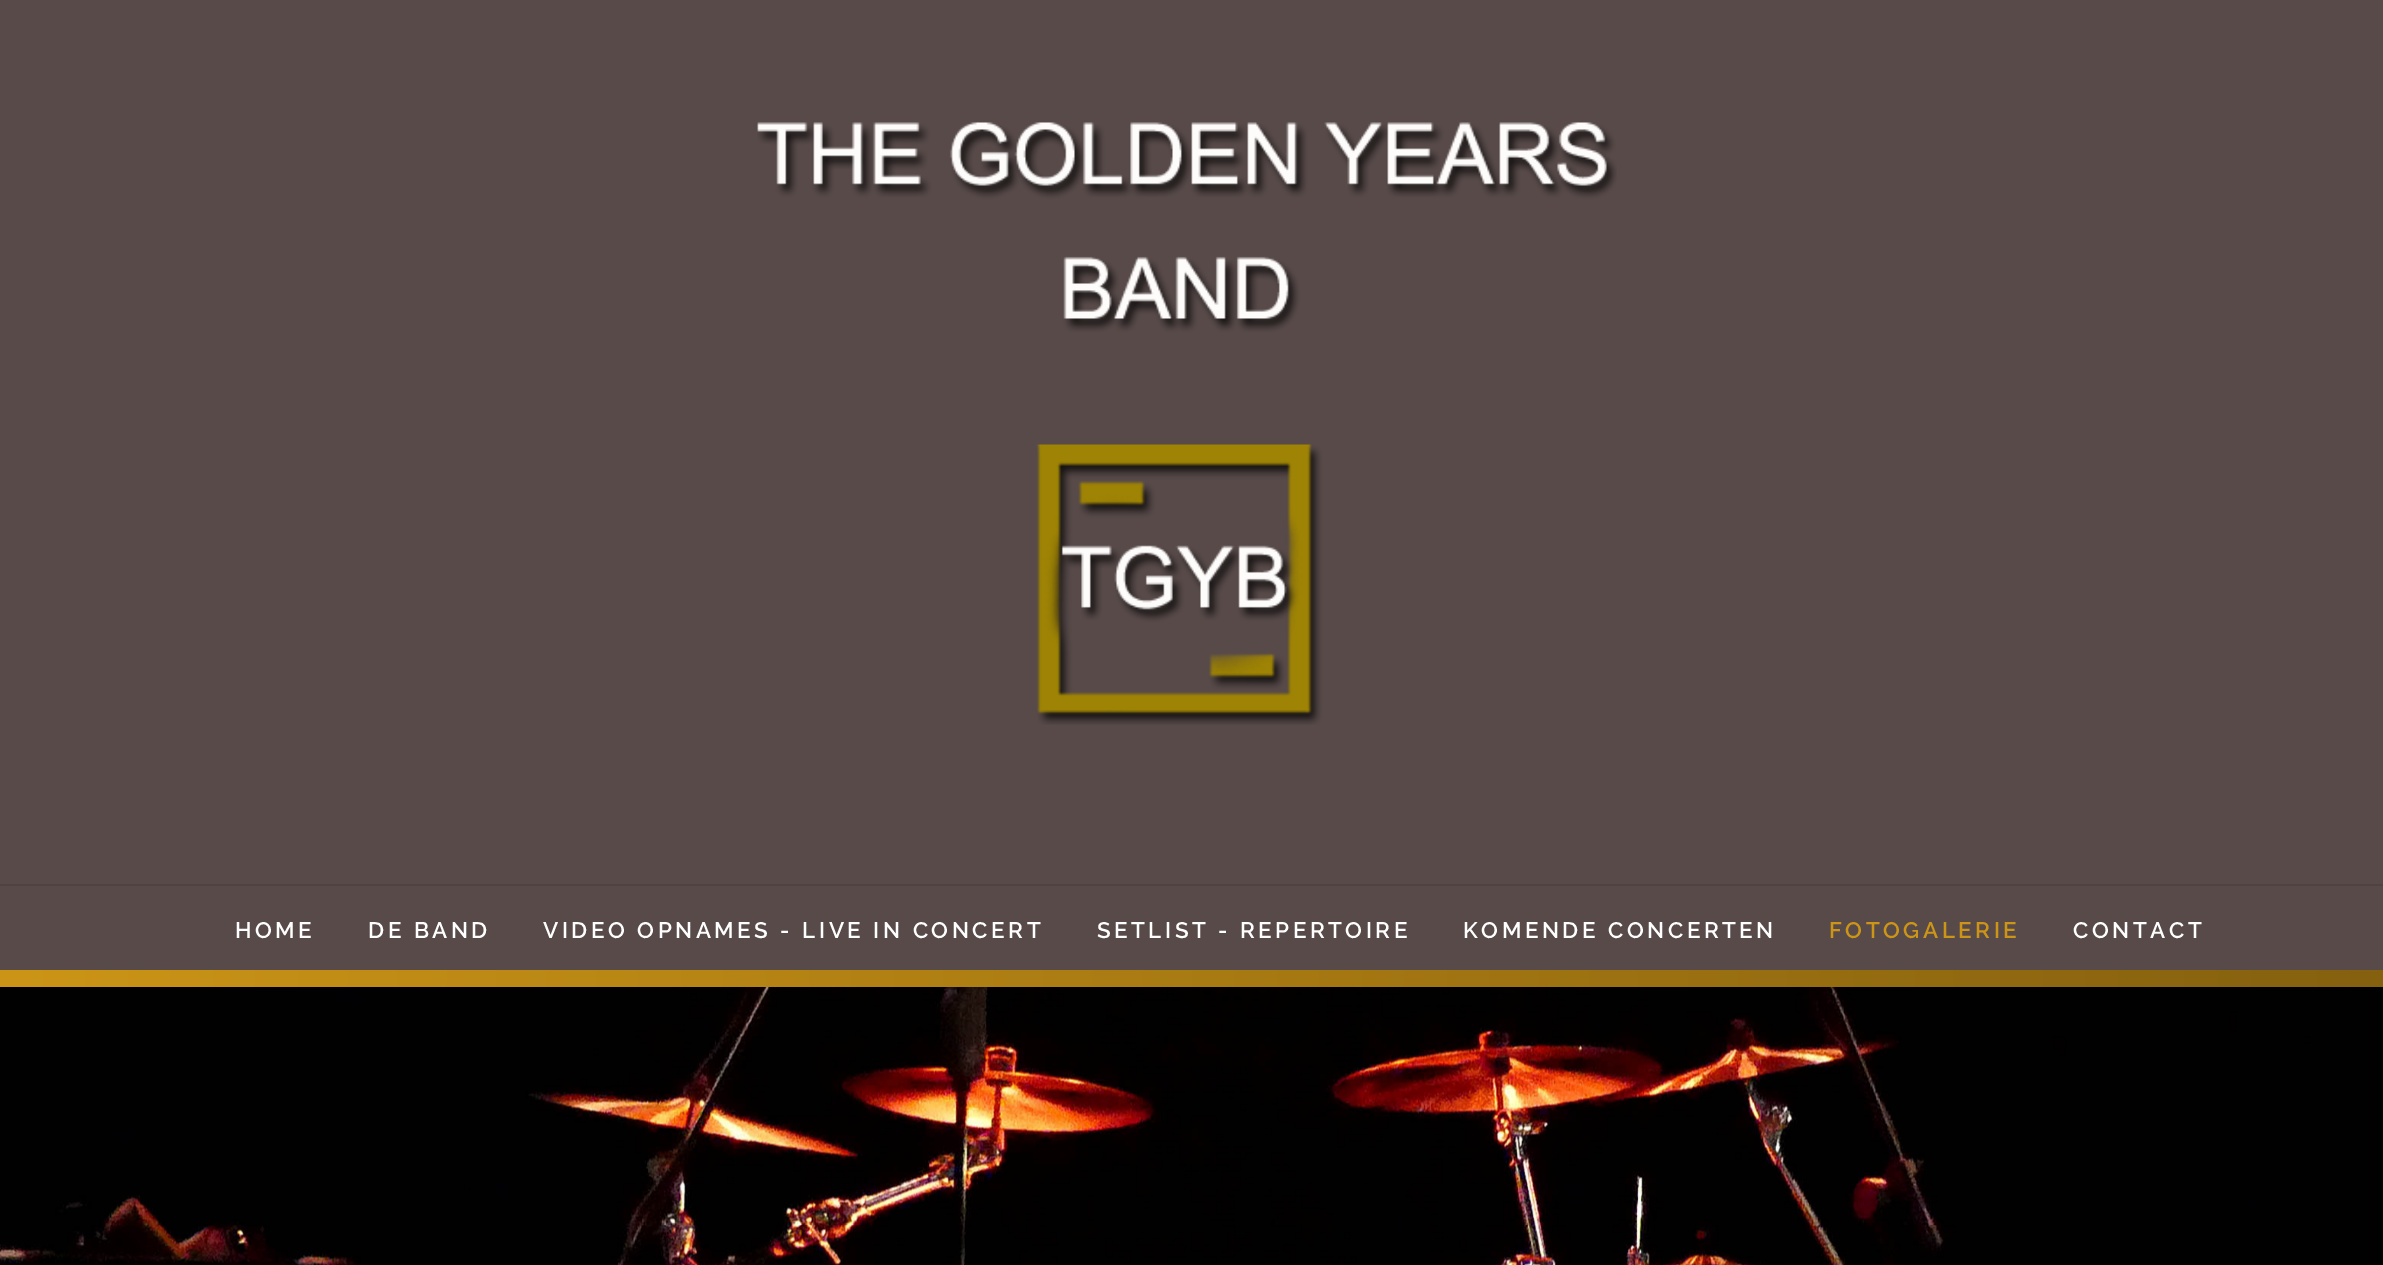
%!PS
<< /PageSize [2383 1265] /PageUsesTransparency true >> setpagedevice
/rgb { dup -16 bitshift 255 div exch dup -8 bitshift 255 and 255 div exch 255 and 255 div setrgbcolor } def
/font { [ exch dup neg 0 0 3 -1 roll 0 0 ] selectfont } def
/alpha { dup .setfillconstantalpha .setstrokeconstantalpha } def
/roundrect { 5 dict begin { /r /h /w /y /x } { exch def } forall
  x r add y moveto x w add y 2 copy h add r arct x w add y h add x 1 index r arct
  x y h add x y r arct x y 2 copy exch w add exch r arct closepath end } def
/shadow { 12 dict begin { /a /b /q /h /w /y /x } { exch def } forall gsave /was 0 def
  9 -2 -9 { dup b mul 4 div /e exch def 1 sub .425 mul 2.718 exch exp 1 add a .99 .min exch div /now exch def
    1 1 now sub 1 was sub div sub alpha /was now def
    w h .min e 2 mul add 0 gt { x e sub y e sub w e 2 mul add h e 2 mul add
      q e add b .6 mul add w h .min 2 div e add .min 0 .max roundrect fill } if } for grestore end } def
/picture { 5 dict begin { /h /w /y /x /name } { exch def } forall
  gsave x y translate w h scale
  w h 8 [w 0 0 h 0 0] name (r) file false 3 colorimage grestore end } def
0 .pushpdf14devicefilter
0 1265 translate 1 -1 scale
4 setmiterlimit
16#FFFFFF rgb
0 0 2383 1265 rectfill
(pic2.raw) 0 987 2383 278 picture
16#000000 rgb
0 18 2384 969 0 2.5 0.25 shadow
16#574A49 rgb
0 0 2383 970 rectfill
(pic1.raw) 757 122 860 603 picture
16#4E4342 rgb
0 884 2383 2 rectfill
/Raleway-SemiBold 22.4 font
16#FFFFFF rgb
235 938 moveto 3.5 0 (HOME) ashow
368 938 moveto 3.5 0 (DE BAND) ashow
543 938 moveto 3.5 0 (VIDEO OPNAMES - LIVE IN CONCERT) ashow
1097 938 moveto 3.5 0 (SETLIST - REPERTOIRE) ashow
1463 938 moveto 3.5 0 (KOMENDE CONCERTEN) ashow
16#CC9517 rgb
1829 938 moveto 3.5 0 (FOTOGALERIE) ashow
16#FFFFFF rgb
2073 938 moveto 3.5 0 (CONTACT) ashow
gsave 0 970 moveto 2383 970 lineto 2383 987 lineto 0 987 lineto closepath clip newpath
<< /ShadingType 2 /ColorSpace /DeviceRGB /Coords [0 978 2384 978] /Extend [true true] /Function << /FunctionType 2 /Domain [0 1] /C0 [0.8 0.584 0.09] /C1 [0.522 0.38 0.059] /N 1 >> >> shfill grestore
.poppdf14devicefilter showpage
